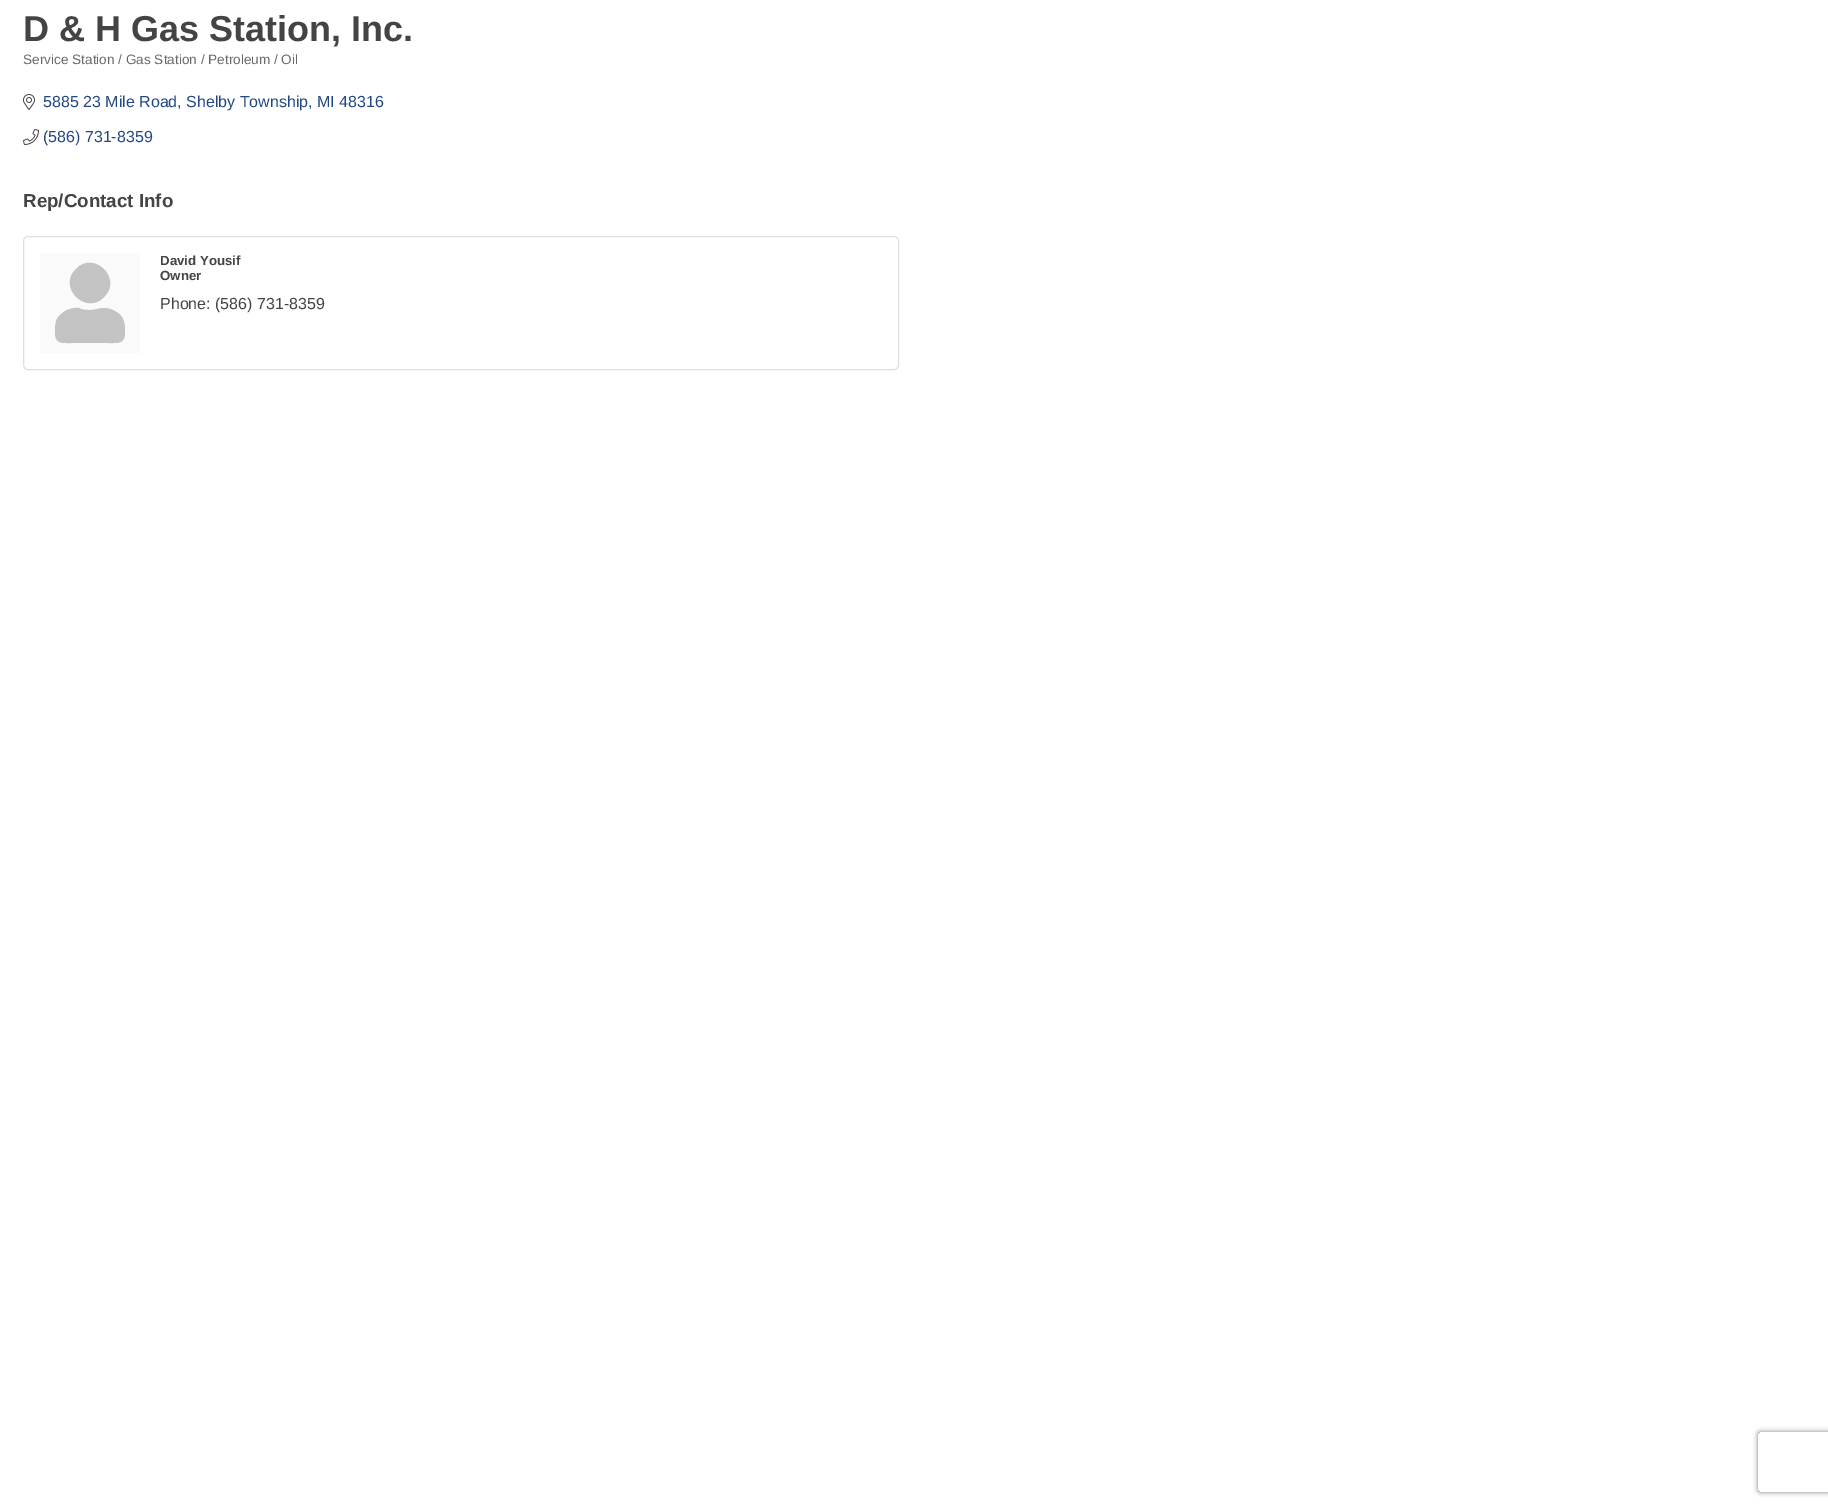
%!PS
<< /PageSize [1828 1506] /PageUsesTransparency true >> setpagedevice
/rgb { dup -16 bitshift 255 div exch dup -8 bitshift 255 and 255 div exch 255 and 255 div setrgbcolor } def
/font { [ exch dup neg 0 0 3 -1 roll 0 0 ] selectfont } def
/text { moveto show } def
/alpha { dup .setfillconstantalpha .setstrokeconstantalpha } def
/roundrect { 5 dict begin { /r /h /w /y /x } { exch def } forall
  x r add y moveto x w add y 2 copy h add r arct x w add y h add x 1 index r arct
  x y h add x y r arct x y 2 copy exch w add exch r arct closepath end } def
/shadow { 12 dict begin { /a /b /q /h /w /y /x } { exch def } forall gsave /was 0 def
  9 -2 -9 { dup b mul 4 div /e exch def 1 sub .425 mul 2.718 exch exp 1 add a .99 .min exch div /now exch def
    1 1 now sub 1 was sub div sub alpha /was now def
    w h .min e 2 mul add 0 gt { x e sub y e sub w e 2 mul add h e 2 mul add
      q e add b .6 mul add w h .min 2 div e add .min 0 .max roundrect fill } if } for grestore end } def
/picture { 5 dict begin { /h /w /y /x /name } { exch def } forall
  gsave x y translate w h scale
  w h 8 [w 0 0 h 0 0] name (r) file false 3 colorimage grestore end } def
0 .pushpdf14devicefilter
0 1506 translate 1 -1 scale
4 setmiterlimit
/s1 { /LiberationSans-Bold 36 font 16#444444 rgb } def
/s2 { /LiberationSans-Regular 13.6 font 16#696969 rgb } def
/s3 { /LiberationSans-Regular 16 font 16#224884 rgb } def
/s4 { /LiberationSans-Bold 18.75 font 16#444444 rgb } def
/s5 { /LiberationSans-Bold 13.25 font 16#444444 rgb } def
/s6 { /LiberationSans-Regular 16 font 16#444444 rgb } def
16#FFFFFF rgb
0 0 1828 1506 rectfill
s1
(D & H Gas Station, Inc.) 23 41 text
s2
(Service Station / Gas Station / Petroleum / Oil) 23 64 text
(pic1.raw) 23 94 12 16 picture
s3
(5885 23 Mile Road, Shelby Township, MI 48316) 43 107 text
(pic2.raw) 23 129 16 16 picture
(\(586\) 731-8359) 43 142 text
s4
(Rep/Contact Info) 23 207 text
16#DFDFDF rgb
23.5 236.5 875 133 4.5 roundrect stroke
16#FAFAFA rgb
40 253 100 100 rectfill
16#C3C3C3 rgb
104 297 moveto 86 316 57 287 76 269 curveto 94 250 123 279 104 297 curveto closepath 104 308 moveto 111 308 118 312 122 317 curveto 125 322 125 327 125 332 curveto 125 344 119 343 108 343 curveto 72 343 lineto 61 343 55 344 55 332 curveto 55 328 55 323 57 319 curveto 61 312 70 307 79 308 curveto 81 309 lineto 84 310 87 310 90 310 curveto 95 310 99 308 104 308 curveto closepath fill
s5
(David Yousif) 160 265 text
(Owner) 160 280 text
s6
(Phone: \(586\) 731-8359) 160 309 text
gsave
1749 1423 moveto 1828 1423 lineto 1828 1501 lineto 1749 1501 lineto closepath 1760 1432 moveto 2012 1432 lineto 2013 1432 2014 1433 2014 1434 curveto 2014 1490 lineto 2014 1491 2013 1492 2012 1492 curveto 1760 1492 lineto 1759 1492 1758 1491 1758 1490 curveto 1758 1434 lineto 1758 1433 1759 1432 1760 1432 curveto closepath eoclip newpath
16#808080 rgb
1758 1432 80 60 2 2.5 1 shadow
grestore
.poppdf14devicefilter showpage
